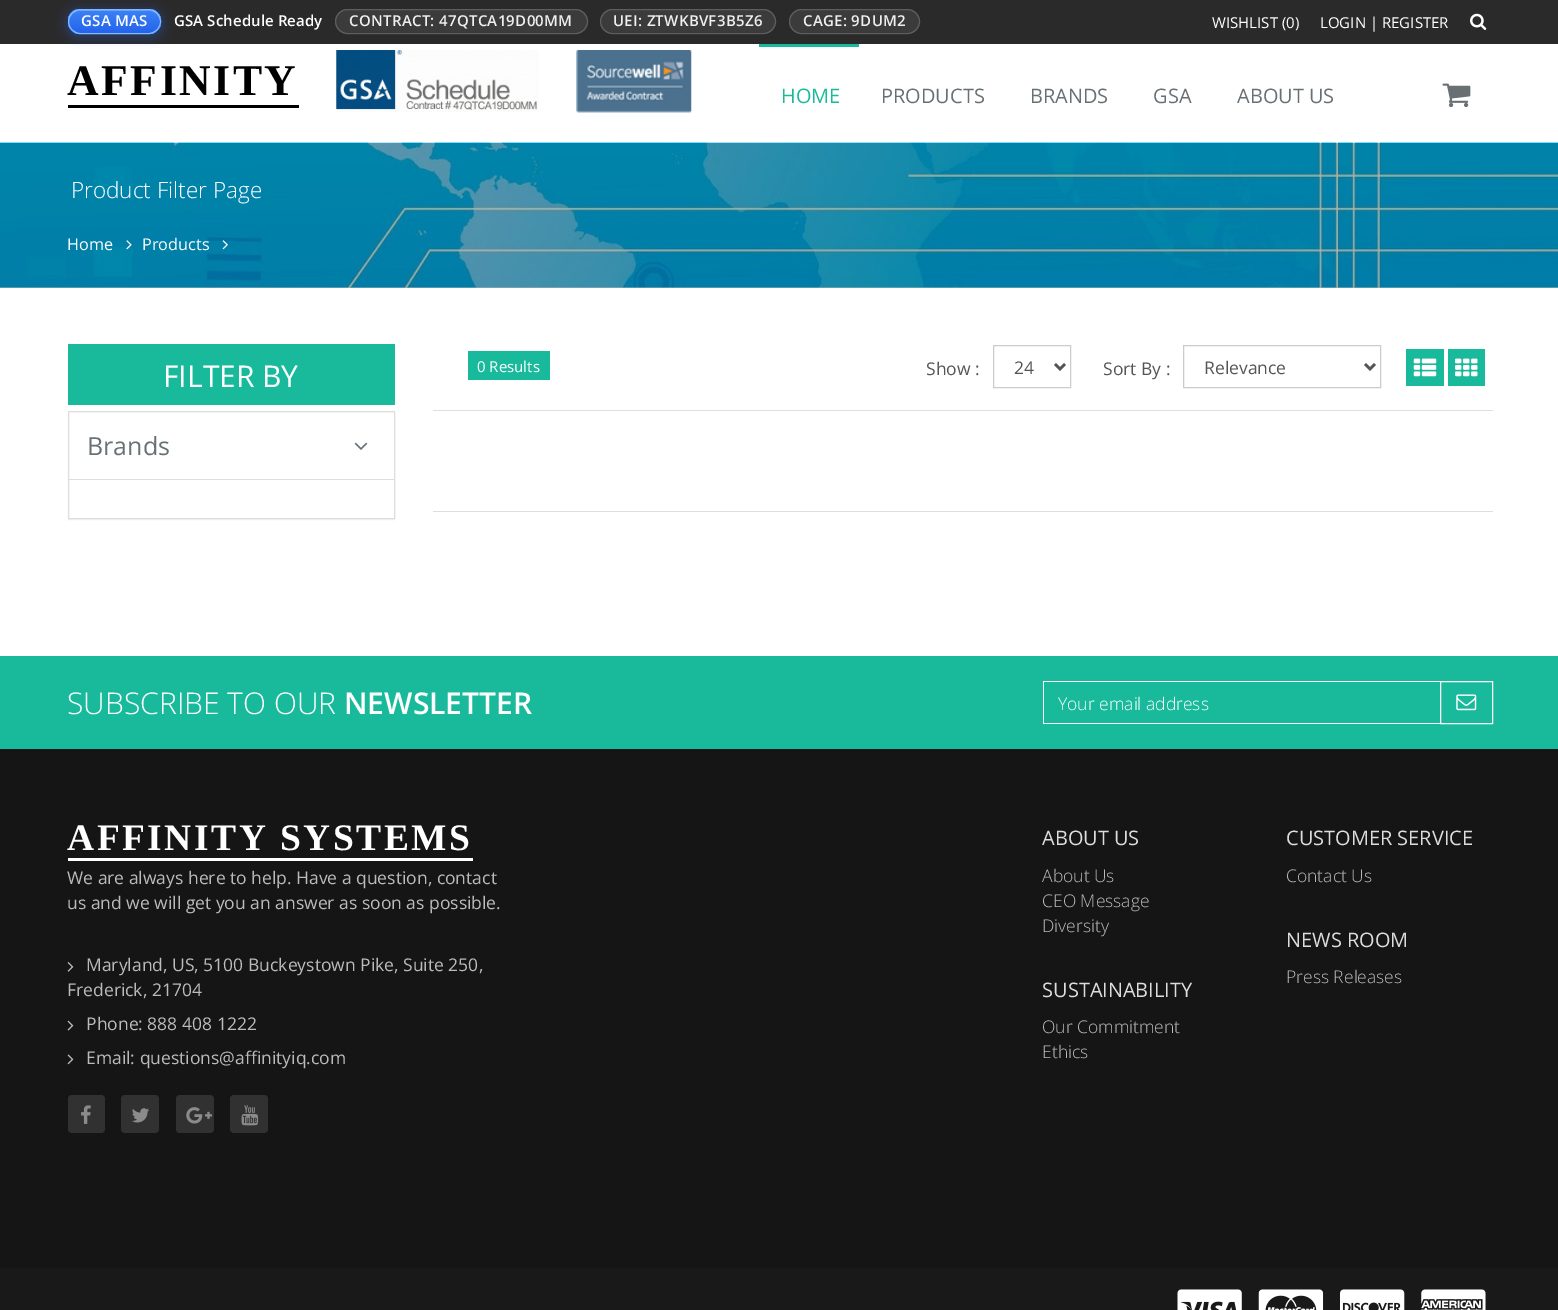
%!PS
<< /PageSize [1558 1310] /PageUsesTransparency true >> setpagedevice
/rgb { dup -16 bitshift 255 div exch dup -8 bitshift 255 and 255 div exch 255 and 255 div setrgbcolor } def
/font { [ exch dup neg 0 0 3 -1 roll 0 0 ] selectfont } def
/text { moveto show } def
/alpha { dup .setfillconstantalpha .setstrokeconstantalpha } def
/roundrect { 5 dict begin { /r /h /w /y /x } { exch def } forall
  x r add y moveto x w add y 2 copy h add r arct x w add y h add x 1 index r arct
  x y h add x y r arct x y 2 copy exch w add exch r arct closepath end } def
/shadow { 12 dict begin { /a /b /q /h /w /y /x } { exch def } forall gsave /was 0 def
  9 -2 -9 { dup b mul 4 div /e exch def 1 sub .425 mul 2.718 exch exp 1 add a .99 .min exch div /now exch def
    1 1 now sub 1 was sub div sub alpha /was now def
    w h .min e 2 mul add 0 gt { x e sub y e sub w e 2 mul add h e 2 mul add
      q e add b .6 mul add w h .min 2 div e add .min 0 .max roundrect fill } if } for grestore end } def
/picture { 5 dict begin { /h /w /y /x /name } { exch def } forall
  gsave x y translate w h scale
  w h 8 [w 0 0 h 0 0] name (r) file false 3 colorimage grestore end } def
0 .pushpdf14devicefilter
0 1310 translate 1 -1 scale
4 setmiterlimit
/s1 { /OpenSans-Regular 15 font 16#FFFFFF rgb } def
/s2 { /OpenSans-Regular 20 font 16#18BA9B rgb } def
/s3 { /OpenSans-Regular 20 font 16#687074 rgb } def
/s4 { /OpenSans-Light 22.5 font 16#FFFFFF rgb } def
/s5 { /OpenSans-Regular 16.25 font 16#FFFFFF rgb } def
/s6 { /OpenSans-Regular 30 font 16#FFFFFF rgb } def
/s7 { /OpenSans-Regular 25 font 16#687074 rgb } def
/s8 { /OpenSans-Regular 17.5 font 16#555555 rgb } def
/s9 { /OpenSans-Light 30 font 16#FFFFFF rgb } def
/s10 { /OpenSans-SemiBold 30 font 16#FFFFFF rgb } def
/s11 { /OpenSans-Light 17.5 font 16#FFFFFF rgb } def
/s12 { /OpenSans-Regular 17.5 font 16#BBBBBB rgb } def
/s13 { /OpenSans-Regular 20 font 16#DDDDDD rgb } def
/s14 { /OpenSans-Light 17.5 font 16#BBBBBB rgb } def
16#FFFFFF rgb
0 0 1558 1310 rectfill
16#B3B3B3 rgb
0 287 1558 1 rectfill
16#2A2A2A rgb
0 0 1558 44 rectfill
16#2563EB rgb
68 11 93 25 12.5 6 0.45 shadow
gsave
68 9 93 25 12.5 roundrect clip newpath
gsave 68 9 moveto 161 9 lineto 161 10 lineto 68 10 lineto closepath clip newpath
<< /ShadingType 2 /ColorSpace /DeviceRGB /Coords [114 -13 114 10] /Extend [true true] /Function << /FunctionType 2 /Domain [0 1] /C0 [0.231 0.51 0.965] /C1 [0.145 0.388 0.922] /N 1 >> >> shfill grestore
gsave 68 10 moveto 161 10 lineto 161 33 lineto 68 33 lineto closepath clip newpath
<< /ShadingType 2 /ColorSpace /DeviceRGB /Coords [114 10 114 33] /Extend [true true] /Function << /FunctionType 2 /Domain [0 1] /C0 [0.231 0.51 0.965] /C1 [0.145 0.388 0.922] /N 1 >> >> shfill grestore
gsave 68 33 moveto 161 33 lineto 161 34 lineto 68 34 lineto closepath clip newpath
<< /ShadingType 2 /ColorSpace /DeviceRGB /Coords [114 32 114 55] /Extend [true true] /Function << /FunctionType 2 /Domain [0 1] /C0 [0.231 0.51 0.965] /C1 [0.145 0.388 0.922] /N 1 >> >> shfill grestore
grestore
0.18 alpha
16#FFFFFF rgb
80 11 moveto 149 11 lineto 155 11 160 16 160 22 curveto 160 8 146 10 137 10 curveto 92 10 lineto 83 10 69 8 69 22 curveto 69 16 74 11 80 11 curveto closepath fill
0.85 alpha
16#93C5FD rgb
68.5 9.5 92 24 12 roundrect stroke
/OpenSans-SemiBold 15 font
1 alpha
16#FFFFFF rgb
81 26 moveto 0.3 0 (GSA MAS) ashow
174 26 moveto 0.1 0 (GSA Schedule Ready) ashow
0.08 alpha
335 9 253 25 12.5 roundrect fill
0.18 alpha
335.5 9.5 252 24 12 roundrect stroke
1 alpha
16#EFEFEF rgb
349 26 moveto 0.3 0 (CONTRACT: 47QTCA19D00MM) ashow
0.08 alpha
16#FFFFFF rgb
600 9 176 25 12.5 roundrect fill
0.18 alpha
600.5 9.5 175 24 12 roundrect stroke
1 alpha
16#EFEFEF rgb
613 26 moveto 0.3 0 (UEI: ZTWKBVF3B5Z6) ashow
0.08 alpha
16#FFFFFF rgb
789 9 131 25 12.5 roundrect fill
0.18 alpha
789.5 9.5 130 24 12 roundrect stroke
1 alpha
16#EFEFEF rgb
803 26 moveto 0.3 0 (CAGE: 9DUM2) ashow
s1
(WISHLIST \(0\)) 1212 28 text
(LOGIN | REGISTER) 1320 28 text
(pic1.raw) 1470 13 17 17 picture
/LiberationSerif-Bold 43.75 font
16#000000 rgb
67 95 moveto 2.5 0 (AFFINITY) ashow
68 105 231 3 rectfill
(pic2.raw) 336 50 203 62 picture
(pic3.raw) 576 50 116 63 picture
16#18BA9B rgb
759 44 100 3 rectfill
s2
(HOME) 781 103 text
s3
(PRODUCTS) 881 103 text
(BRANDS) 1030 103 text
(GSA) 1153 103 text
(ABOUT US) 1237 103 text
(pic4.raw) 1442 83 29 25 picture
(pic5.raw) 0 142 1558 146 picture
s4
(Product Filter Page) 71 198 text
s5
(Home) 67 250 text
(pic6.raw) 126 240 6 10 picture
(Products) 142 250 text
(pic7.raw) 222 240 6 10 picture
16#18BA9B rgb
68 344 327 61 rectfill
s6
(FILTER BY) 163 387 text
16#000000 rgb
68 413 327 107 0 0.5 0.05 shadow
16#FFFFFF rgb
69 413 325 105 rectfill
16#DEDEDE rgb
68.5 411.5 326 107 rectstroke
69 479 325 1 rectfill
s7
(Brands) 87 455 text
(pic8.raw) 354 442 14 8 picture
16#18BA9B rgb
468 351 82 29 rectfill
s1
(0 Results) 477 372 text
s8
(Show :) 926 375 text
16#CCCCCC rgb
993.5 345.5 77 42 rectstroke
16#555555 rgb
2.5 setlinewidth
1055 364 moveto 1060 369 lineto 1065 364 lineto stroke
(24) 1014 374 text
(Sort By :) 1103 375 text
16#CCCCCC rgb
1 setlinewidth
1183.5 345.5 197 42 rectstroke
16#555555 rgb
2.5 setlinewidth
1365 364 moveto 1370 369 lineto 1375 364 lineto stroke
(Relevance) 1204 374 text
16#18BA9B rgb
1406 349 38 37 rectfill
(pic9.raw) 1413 358 24 19 picture
1448 349 37 37 rectfill
(pic10.raw) 1455 358 23 19 picture
16#DEDEDE rgb
433 410 1060 1 rectfill
433 511 1060 1 rectfill
16#18BA9B rgb
0 656 1558 93 rectfill
s9
(SUBSCRIBE TO OUR) 67 714 text
s10
(NEWSLETTER) 344 714 text
1 setlinewidth
1440.5 681.5 52 42 rectstroke
1043 681 398 1 rectfill
1043 723 398 1 rectfill
1043 681 1 43 rectfill
s11
(Your email address) 1058 710 text
(pic11.raw) 1456 694 21 17 picture
16#151515 rgb
0 749 1558 519 rectfill
/LiberationSerif-Bold 37.5 font
16#FFFFFF rgb
67 850 moveto 2.5 0 (AFFINITY SYSTEMS) ashow
68 858 405 3 rectfill
s12
(We are always here to help. Have a question, contact) 67 884 text
(us and we will get you an answer as soon as possible.) 67 909 text
(pic12.raw) 67 962 7 10 picture
(Maryland, US, 5100 Buckeystown Pike, Suite 250,) 86 971 text
(Frederick, 21704) 67 996 text
(pic13.raw) 67 1020 7 11 picture
(Phone: 888 408 1222) 86 1030 text
(pic14.raw) 67 1054 7 11 picture
(Email: questions@affinityiq.com) 86 1064 text
16#323131 rgb
68 1095 37 38 4 roundrect fill
(pic15.raw) 81 1105 10 19 picture
121 1095 38 38 4 roundrect fill
(pic16.raw) 132 1108 17 15 picture
176 1095 38 38 4 roundrect fill
(pic17.raw) 186 1107 26 17 picture
230 1095 38 38 4 roundrect fill
(pic18.raw) 241 1105 18 21 picture
s13
(ABOUT US) 1042 845 text
s14
(About Us) 1042 882 text
(CEO Message) 1042 907 text
(Diversity) 1042 932 text
s13
(SUSTAINABILITY) 1042 997 text
s14
(Our Commitment) 1042 1033 text
(Ethics) 1042 1058 text
s13
(CUSTOMER SERVICE) 1286 845 text
s14
(Contact Us) 1286 882 text
s13
(NEWS ROOM) 1286 947 text
s14
(Press Releases) 1286 983 text
16#191919 rgb
0 1268 1558 42 rectfill
(pic19.raw) 1177 1289 65 21 picture
(pic20.raw) 1258 1289 66 21 picture
(pic21.raw) 1340 1289 65 21 picture
(pic22.raw) 1421 1289 65 21 picture
.poppdf14devicefilter showpage
